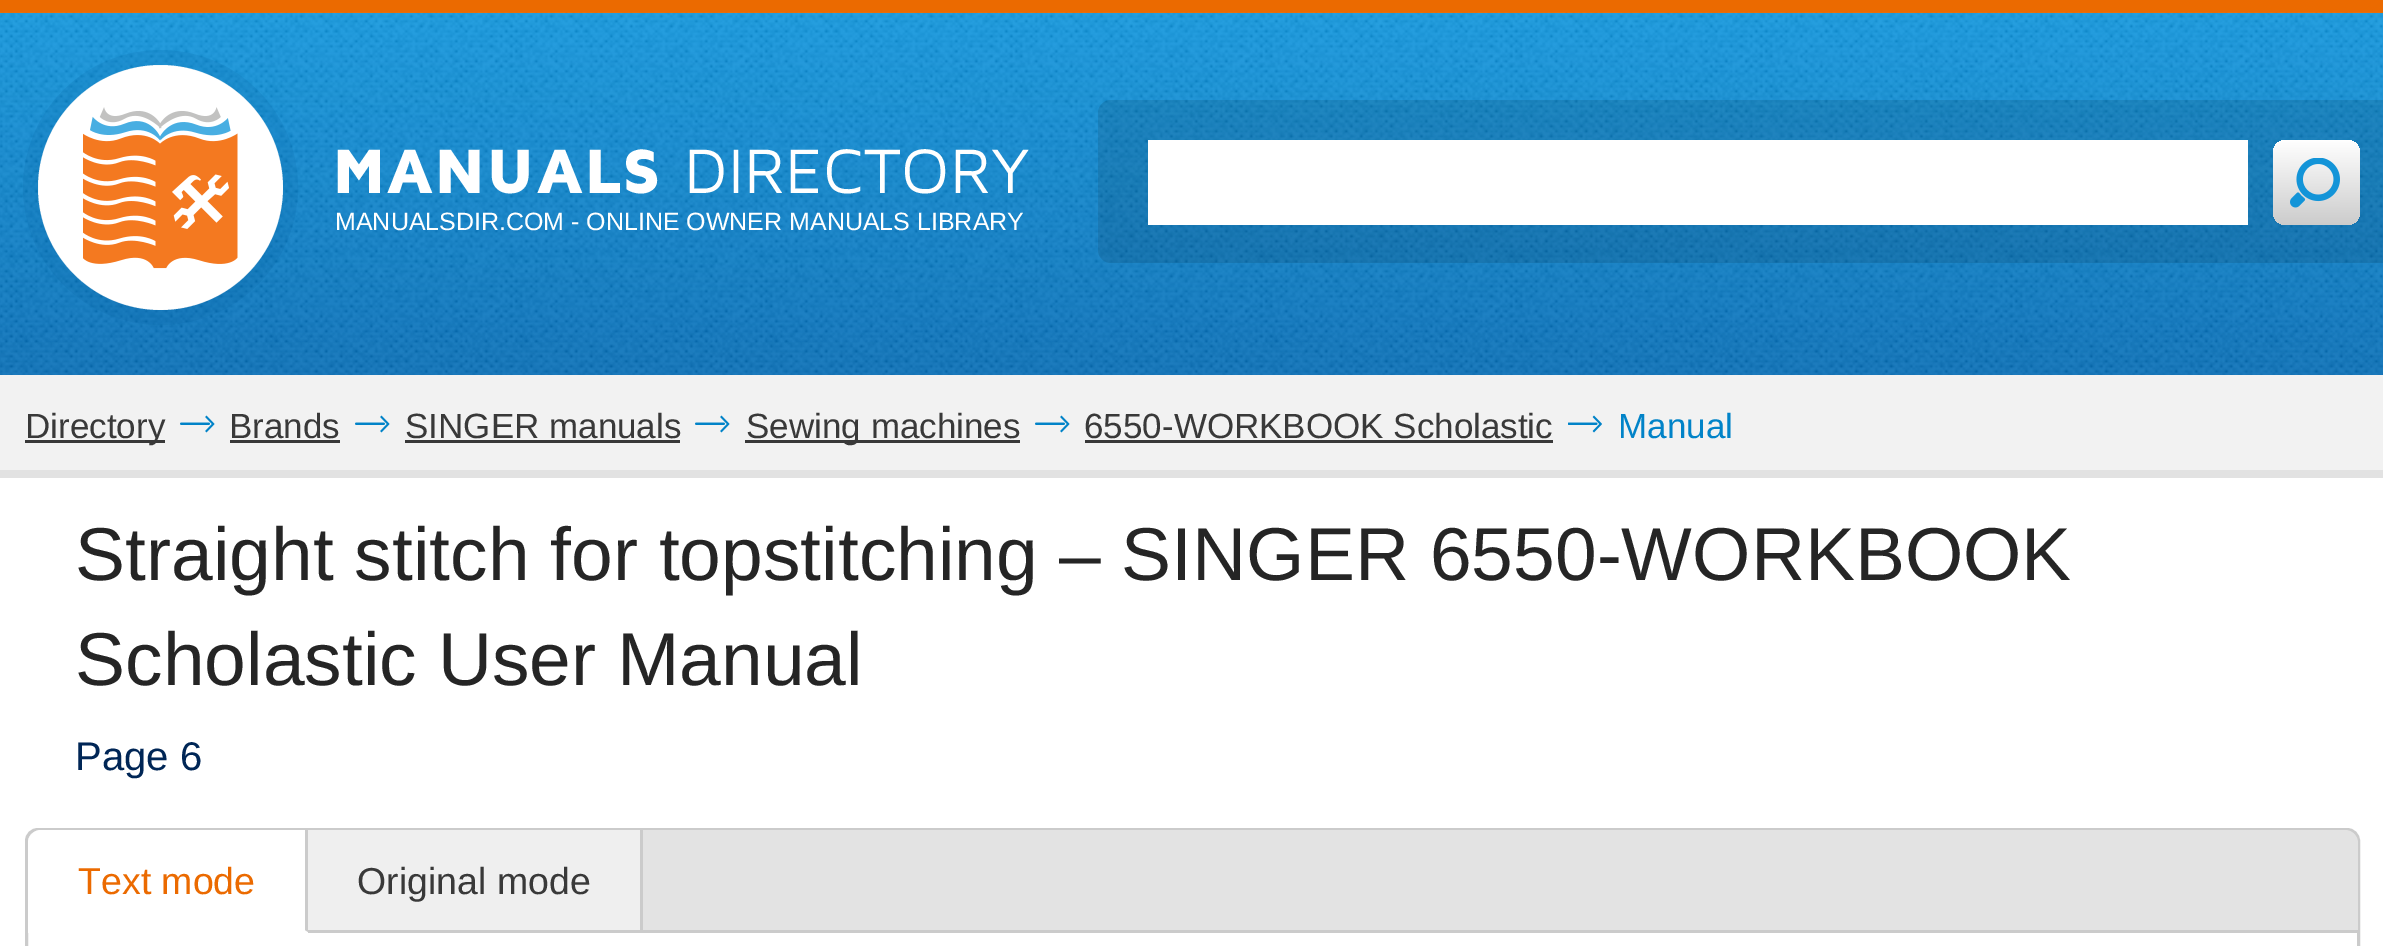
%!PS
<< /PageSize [2383 946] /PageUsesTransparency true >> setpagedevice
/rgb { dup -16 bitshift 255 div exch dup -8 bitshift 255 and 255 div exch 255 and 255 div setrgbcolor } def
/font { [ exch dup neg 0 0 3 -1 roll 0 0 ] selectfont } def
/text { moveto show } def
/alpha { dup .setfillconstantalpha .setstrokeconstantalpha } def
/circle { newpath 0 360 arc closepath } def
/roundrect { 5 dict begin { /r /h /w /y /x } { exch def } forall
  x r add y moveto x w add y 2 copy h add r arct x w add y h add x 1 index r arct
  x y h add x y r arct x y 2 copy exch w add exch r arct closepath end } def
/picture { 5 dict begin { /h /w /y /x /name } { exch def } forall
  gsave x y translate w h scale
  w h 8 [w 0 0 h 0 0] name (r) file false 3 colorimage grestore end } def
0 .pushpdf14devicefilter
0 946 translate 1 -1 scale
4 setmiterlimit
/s1 { /LiberationSans-Regular 25 font 16#FFFFFF rgb } def
/s2 { /LiberationSans-Regular 35 font 16#393939 rgb } def
/s3 { /LiberationSans-Regular 35 font 16#0183C8 rgb } def
/s4 { /LiberationSans-Regular 75 font 16#252525 rgb } def
/s5 { /LiberationSans-Regular 40 font 16#002656 rgb } def
/s6 { /LiberationSans-Regular 37.5 font 16#EB6A00 rgb } def
/s7 { /LiberationSans-Regular 37.5 font 16#393939 rgb } def
16#FFFFFF rgb
0 0 2383 946 rectfill
gsave 0 13 moveto 2383 13 lineto 2383 375 lineto 0 375 lineto closepath clip newpath
<< /ShadingType 2 /ColorSpace /DeviceRGB /Coords [1193 12 1193 375] /Extend [true true] /Function << /FunctionType 2 /Domain [0 1] /C0 [0.055 0.588 0.871] /C1 [0.016 0.427 0.718] /N 1 >> >> shfill grestore
16#EB6A00 rgb
0 0 2383 13 rectfill
(pic1.raw) 0 12 2383 363 picture
16#FFFFFF rgb
160.5 187.5 122.5 circle fill
0.14 alpha
16#005A99 rgb
15 setlinewidth
160.5 187.5 130 circle stroke
1 alpha
(pic2.raw) 83 107 155 162 picture
/MavenPro-Black 65 font
16#FFFFFF rgb
332 193 moveto 0.5 0 (MANUALS) ashow
/MavenPro-Regular 65 font
684 193 moveto 0.5 0 (DIRECTORY) ashow
s1
(MANUALSDIR.COM - ONLINE OWNER MANUALS LIBRARY) 335 230 text
0.1 alpha
16#000000 rgb
1111 100 moveto 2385 100 lineto 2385 263 lineto 1111 263 lineto 1104 263 1098 257 1098 250 curveto 1098 113 lineto 1098 106 1104 100 1111 100 curveto closepath fill
1 alpha
16#FFFFFF rgb
1148 140 1100 85 rectfill
gsave 2273 140 87 85 13 roundrect clip newpath
<< /ShadingType 2 /ColorSpace /DeviceRGB /Coords [2316 225 2316 140] /Extend [true true] /Function << /FunctionType 2 /Domain [0 1] /C0 [0.8 0.8 0.8] /C1 [1 1 1] /N 1 >> >> shfill grestore
(pic3.raw) 2290 158 50 50 picture
16#F2F2F2 rgb
0 375 2383 95 rectfill
16#E2E2E2 rgb
0 470 2383 8 rectfill
16#393939 rgb
25 440 140 3 rectfill
s2
(Directory) 25 438 text
(pic4.raw) 180 415 35 18 picture
(Brands) 229 438 text
230 440 110 3 rectfill
(pic4.raw) 355 415 35 18 picture
(SINGER manuals) 405 438 text
405 440 275 3 rectfill
(pic4.raw) 695 415 35 18 picture
745 440 275 3 rectfill
(Sewing machines) 746 438 text
(pic4.raw) 1035 415 35 18 picture
(6550-WORKBOOK Scholastic) 1084 438 text
1085 440 468 3 rectfill
(pic5.raw) 1568 415 34 18 picture
s3
(Manual) 1618 438 text
s4
(Straight stitch for topstitching – SINGER 6550-WORKBOOK) 75 580 text
(Scholastic User Manual) 75 685 text
s5
(Page 6) 75 770 text
16#CBCBCB rgb
3 setlinewidth
26.5 829.5 2332 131 11.5 roundrect stroke
16#E3E3E3 rgb
41 830 moveto 2345 830 lineto 2352 830 2358 836 2358 843 curveto 2358 933 lineto 28 933 lineto 28 843 lineto 28 836 34 830 41 830 curveto closepath fill
16#CBCBCB rgb
643 930 1715 3 rectfill
16#FFFFFF rgb
41 830 moveto 308 830 lineto 308 933 lineto 28 933 lineto 28 843 lineto 28 836 34 830 41 830 curveto closepath fill
16#CBCBCB rgb
308 830 moveto 308 932 lineto 305 930 lineto 305 830 lineto closepath fill
s6
(Text mode) 78 894 text
16#EFEFEF rgb
308 830 332 100 rectfill
16#CBCBCB rgb
640 830 3 103 rectfill
308 930 335 3 rectfill
s7
(Original mode) 357 894 text
.poppdf14devicefilter showpage
